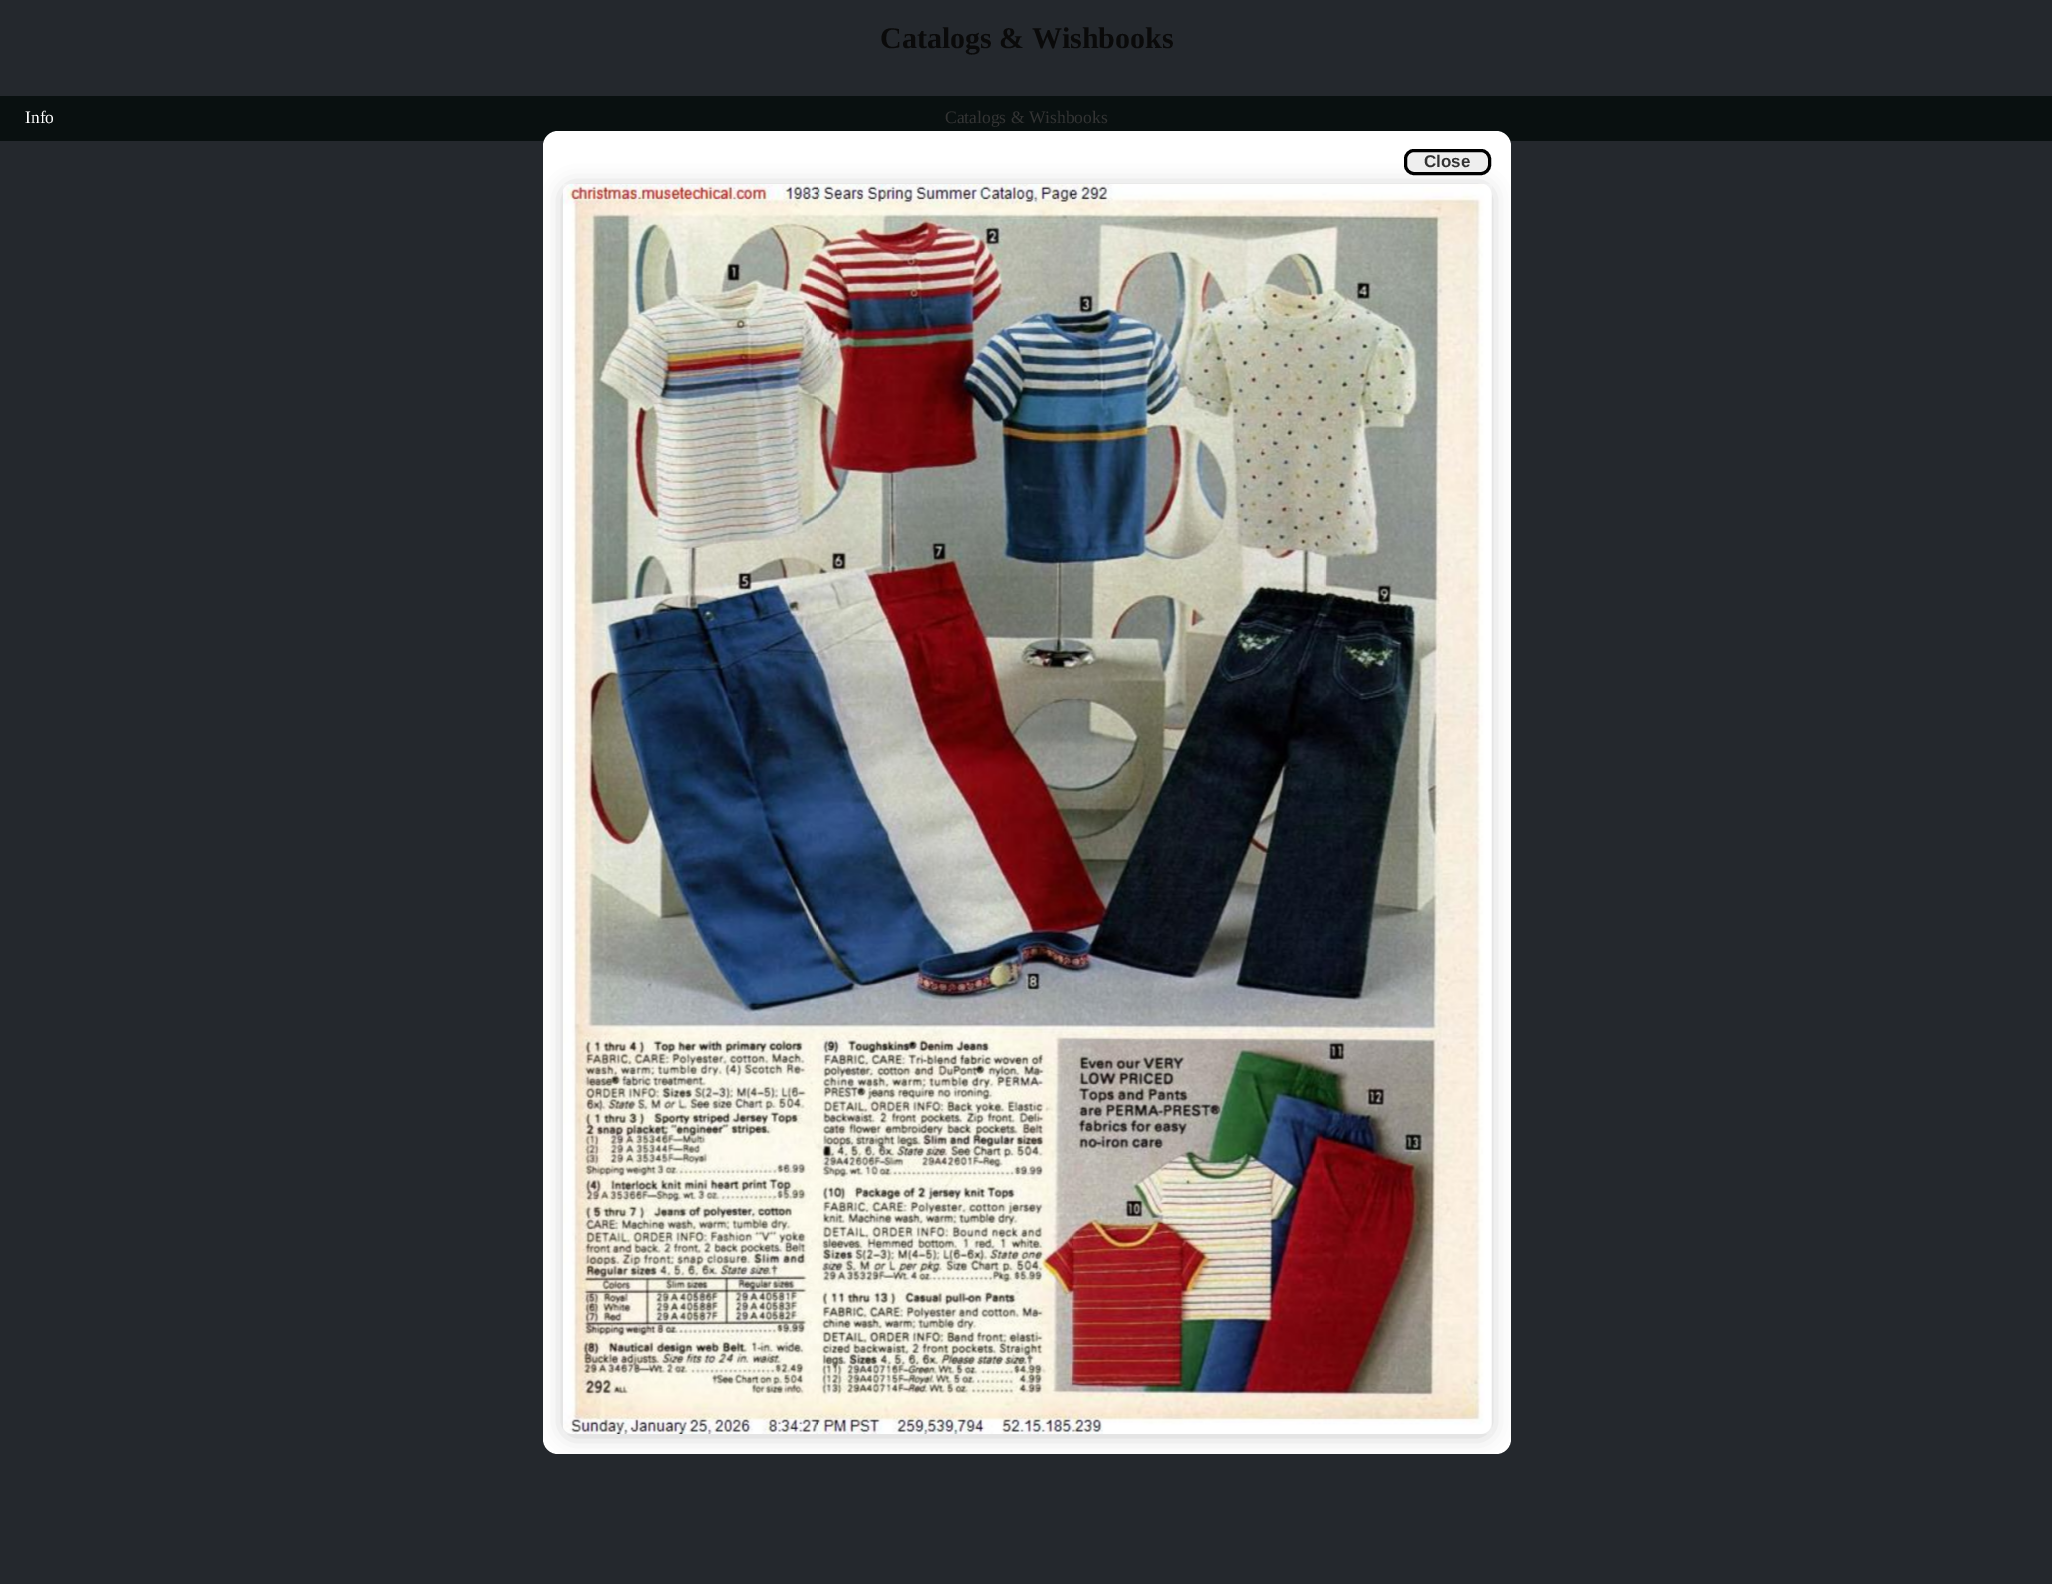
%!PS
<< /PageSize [2052 1584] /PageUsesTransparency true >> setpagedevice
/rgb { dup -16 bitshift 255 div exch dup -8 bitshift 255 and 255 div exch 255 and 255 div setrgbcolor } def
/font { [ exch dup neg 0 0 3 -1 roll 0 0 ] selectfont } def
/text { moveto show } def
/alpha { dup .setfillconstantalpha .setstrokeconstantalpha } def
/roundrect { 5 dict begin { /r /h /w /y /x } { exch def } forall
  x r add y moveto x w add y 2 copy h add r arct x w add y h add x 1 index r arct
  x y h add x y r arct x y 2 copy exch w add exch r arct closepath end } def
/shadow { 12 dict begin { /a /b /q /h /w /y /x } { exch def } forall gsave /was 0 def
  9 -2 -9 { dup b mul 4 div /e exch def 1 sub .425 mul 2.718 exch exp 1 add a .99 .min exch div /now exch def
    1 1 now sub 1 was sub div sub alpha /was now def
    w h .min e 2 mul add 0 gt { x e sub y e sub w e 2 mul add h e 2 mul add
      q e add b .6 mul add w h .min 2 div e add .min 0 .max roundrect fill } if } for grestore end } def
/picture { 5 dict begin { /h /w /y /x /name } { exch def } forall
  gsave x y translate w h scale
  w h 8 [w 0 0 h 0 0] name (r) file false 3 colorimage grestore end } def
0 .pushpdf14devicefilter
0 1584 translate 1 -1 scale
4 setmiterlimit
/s1 { /LiberationSerif-Regular 17.5 font 16#FFFFFF rgb } def
/s2 { /LiberationSerif-Regular 17.5 font 16#333333 rgb } def
/s3 { /LiberationSerif-Bold 30 font 16#0A0A0A rgb } def
/s4 { /LiberationSans-Bold 17 font 16#333333 rgb } def
16#24282D rgb
0 0 2052 1584 rectfill
16#091010 rgb
0 96 2052 45 rectfill
s1
(Info) 25 123 text
s2
(Catalogs & Wishbooks) 945 123 text
s3
(Catalogs & Wishbooks) 880 48 text
16#FFFFFF rgb
543 131 968 1323 15 roundrect fill
16#000000 rgb
563 186 928 1250 10 10 0.2 shadow
16#EEEEEE rgb
1405.5 150.5 84 23 8.5 roundrect gsave fill grestore
16#000000 rgb
3 setlinewidth
stroke
s4
(Close) 1424 167 text
(pic1.raw) 563 184 929 1250 picture
.poppdf14devicefilter showpage
